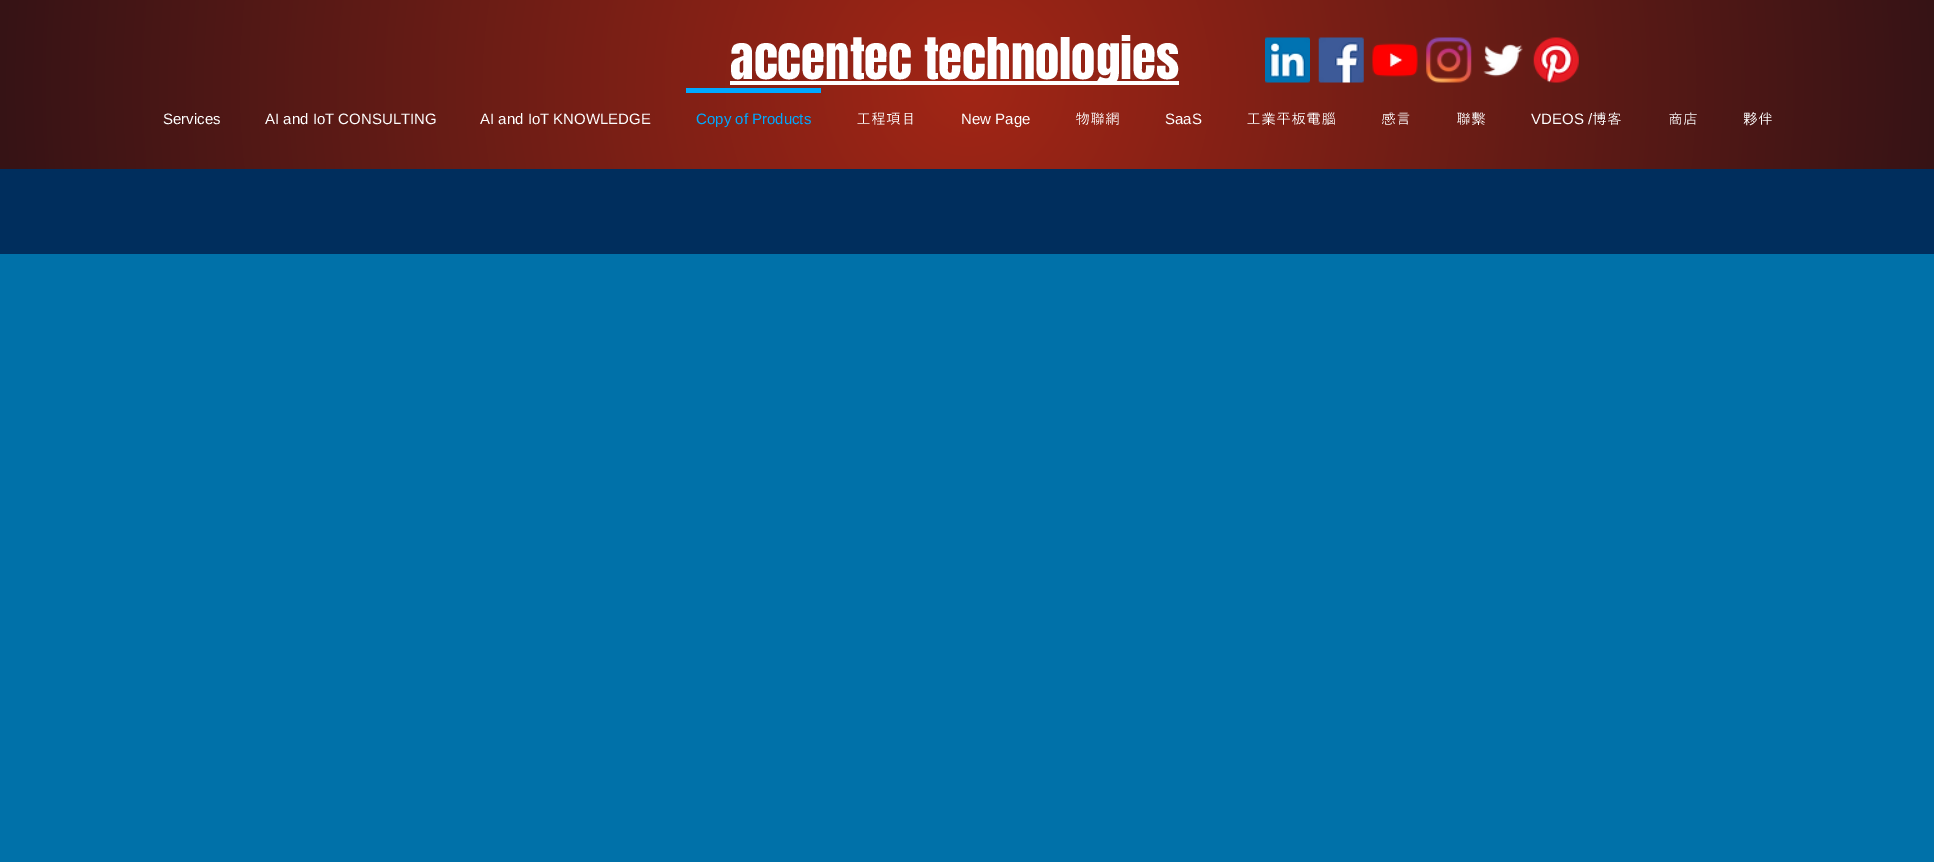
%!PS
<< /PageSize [1934 862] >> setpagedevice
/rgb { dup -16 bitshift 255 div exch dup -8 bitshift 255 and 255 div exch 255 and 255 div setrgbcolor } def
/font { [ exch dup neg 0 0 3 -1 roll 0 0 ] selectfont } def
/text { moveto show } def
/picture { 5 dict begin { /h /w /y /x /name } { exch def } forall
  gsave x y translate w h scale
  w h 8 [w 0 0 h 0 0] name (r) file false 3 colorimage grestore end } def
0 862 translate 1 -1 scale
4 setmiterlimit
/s1 { /Anton-Regular 48.75 font 16#FFFFFF rgb } def
/s2 { /LiberationSans-Regular 15 font 16#FFFFFF rgb } def
/s3 { /LiberationSans-Regular 15 font 16#00A9FF rgb } def
/s4 { /Dotum-Regular 15 font 16#FFFFFF rgb } def
16#0071A9 rgb
0 0 1934 862 rectfill
gsave 0 0 moveto 1934 0 lineto 1934 169 lineto 0 169 lineto closepath clip newpath 968 84 translate 971 971 scale
<< /ShadingType 3 /ColorSpace /DeviceRGB /Coords [0 0 0 0 0 1] /Extend [true true] /Function << /FunctionType 2 /Domain [0 1] /C0 [0.635 0.149 0.082] /C1 [0.212 0.075 0.082] /N 1 >> >> shfill grestore
16#FFFFFF rgb
730 81 449 4 rectfill
s1
(accentec technologies) 730 79 text
(pic1.raw) 1265 37 45 46 picture
(pic2.raw) 1318 37 46 46 picture
(pic3.raw) 1372 43 46 34 picture
(pic4.raw) 1426 37 46 46 picture
(pic5.raw) 1483 44 40 33 picture
(pic6.raw) 1533 37 46 46 picture
s2
(Services) 163 124 text
(AI and IoT CONSULTING) 265 124 text
(AI and IoT KNOWLEDGE) 480 124 text
16#00A9FF rgb
686 88 135 5 rectfill
(Copy of Products) 696 124 text
s4
(工程項目) 856 124 text
s2
(New Page) 961 124 text
s4
(物聯網) 1075 124 text
s2
(SaaS) 1165 124 text
s4
(工業平板電腦) 1246 124 text
(感言) 1381 124 text
(聯繫) 1456 124 text
s2
(VDEOS /) 1531 124 text
s4
(博客) 1592 124 text
(商店) 1668 124 text
(夥伴) 1743 124 text
16#002E5D rgb
0 169 1934 85 rectfill
showpage
